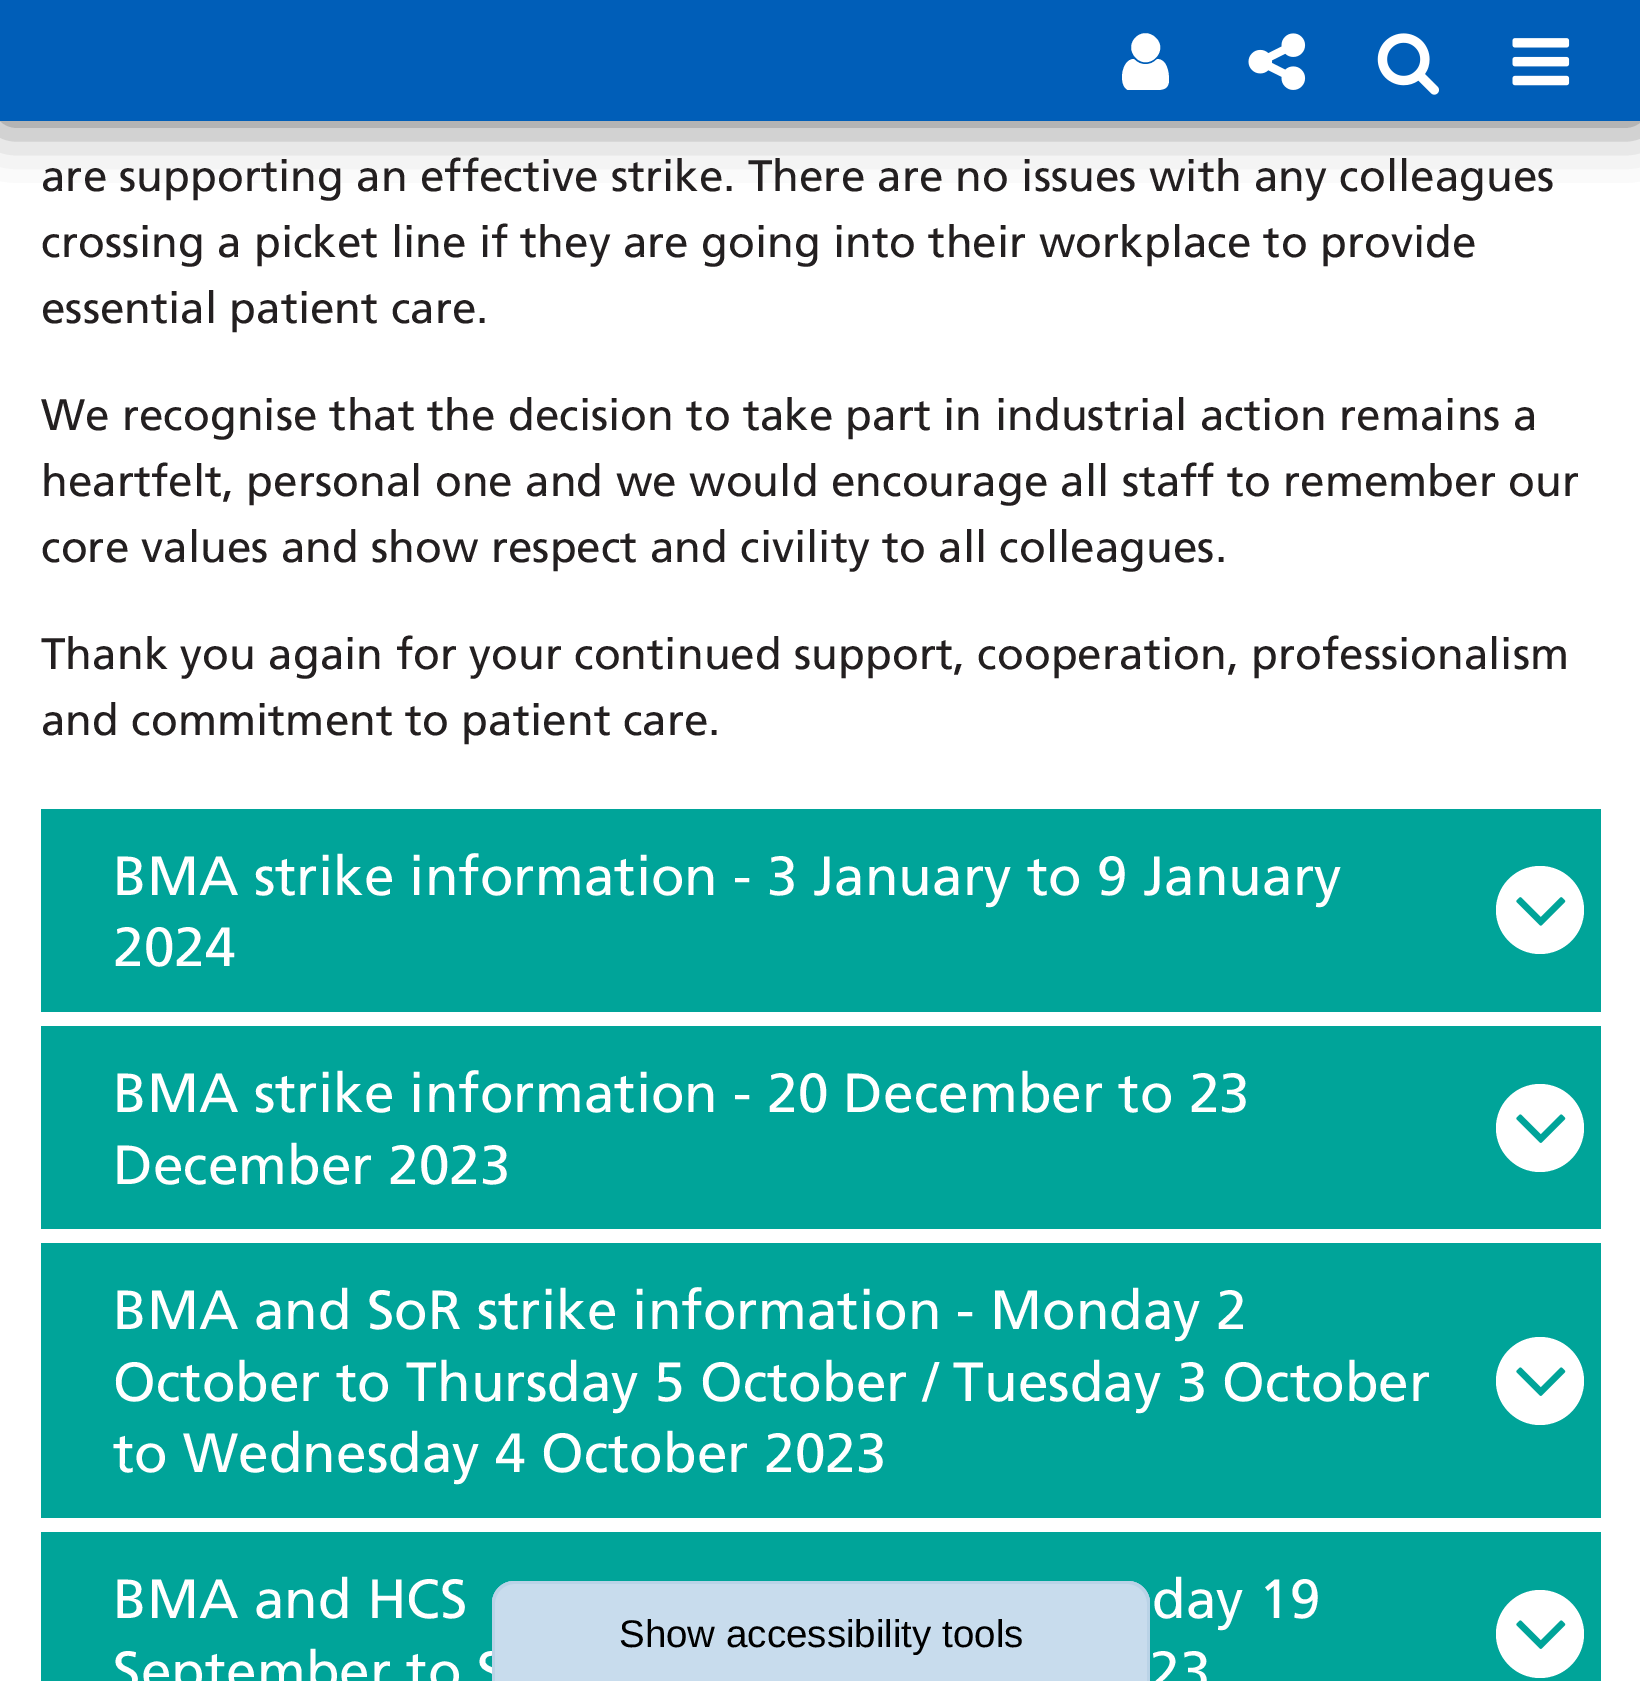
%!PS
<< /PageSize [1640 1681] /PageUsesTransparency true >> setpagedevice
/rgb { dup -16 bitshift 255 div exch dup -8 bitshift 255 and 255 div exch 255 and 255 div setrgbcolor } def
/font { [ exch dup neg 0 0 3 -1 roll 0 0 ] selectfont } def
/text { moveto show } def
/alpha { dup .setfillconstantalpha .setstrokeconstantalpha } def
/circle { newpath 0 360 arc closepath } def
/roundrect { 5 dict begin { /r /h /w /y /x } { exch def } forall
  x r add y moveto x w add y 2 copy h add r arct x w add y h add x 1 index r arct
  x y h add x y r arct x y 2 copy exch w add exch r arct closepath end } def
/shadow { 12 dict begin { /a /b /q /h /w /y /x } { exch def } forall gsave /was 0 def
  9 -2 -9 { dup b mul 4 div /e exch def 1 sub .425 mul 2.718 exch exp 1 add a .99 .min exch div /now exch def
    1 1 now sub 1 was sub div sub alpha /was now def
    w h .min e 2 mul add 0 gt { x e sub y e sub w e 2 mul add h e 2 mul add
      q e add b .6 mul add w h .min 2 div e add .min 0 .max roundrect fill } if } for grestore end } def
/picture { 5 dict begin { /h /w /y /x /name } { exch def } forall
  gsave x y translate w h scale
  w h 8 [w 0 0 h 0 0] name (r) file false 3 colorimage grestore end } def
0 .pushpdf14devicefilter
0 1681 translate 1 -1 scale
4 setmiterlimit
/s1 { /Frutiger-Regular 44 font 16#231F20 rgb } def
/s2 { /Frutiger-Regular 55 font 16#FFFFFF rgb } def
/s3 { /LiberationSans-Regular 38.5 font 16#000000 rgb } def
16#FFFFFF rgb
0 0 1640 1681 rectfill
16#000000 rgb
0 0 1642 121 0 27.5 0.6 shadow
16#005EB8 rgb
0 0 1640 121 rectfill
16#FFFFFF rgb
1169 80 moveto 1169 89 1163 90 1156 90 curveto 1128 90 lineto 1118 86 1121 59 1134 59 curveto 1140 66 1151 66 1157 59 curveto 1167 59 1169 72 1169 80 curveto closepath 1156 38 moveto 1169 51 1149 71 1136 58 curveto 1122 44 1142 24 1156 38 curveto closepath fill
(pic1.raw) 1248 33 58 57 picture
(pic2.raw) 1377 33 62 62 picture
(pic3.raw) 1512 38 58 48 picture
s1
(are supporting an effective strike. There are no issues with any colleagues) 41 191 text
(crossing a picket line if they are going into their workplace to provide) 41 257 text
(essential patient care.) 41 323 text
(We recognise that the decision to take part in industrial action remains a) 41 430 text
(heartfelt, personal one and we would encourage all staff to remember our) 41 496 text
(core values and show respect and civility to all colleagues.) 41 562 text
(Thank you again for your continued support, cooperation, professionalism) 41 669 text
(and commitment to patient care.) 41 735 text
16#00A499 rgb
41 809 1560 203 rectfill
s2
(BMA strike information - 3 January to 9 January) 113 895 text
1540 910 44 circle fill
(pic4.raw) 1516 897 50 29 picture
(2024) 113 966 text
16#00A499 rgb
41 1026 1560 203 rectfill
s2
(BMA strike information - 20 December to 23) 113 1112 text
1540 1128 44 circle fill
(pic5.raw) 1516 1114 50 29 picture
(December 2023) 113 1184 text
16#00A499 rgb
41 1243 1560 275 rectfill
s2
(BMA and SoR strike information - Monday 2) 113 1329 text
(October to Thursday 5 October / Tuesday 3 October) 113 1401 text
1540 1381 44 circle fill
(pic5.raw) 1516 1367 50 29 picture
(to Wednesday 4 October 2023) 113 1472 text
16#00A499 rgb
41 1532 1560 149 rectfill
s2
(BMA and HCS) 113 1618 text
(day 19) 1152 1618 text
1540 1634 44 circle fill
(pic5.raw) 1516 1620 50 29 picture
(September to S) 113 1690 text
(23) 1149 1690 text
16#C8DCED rgb
514 1581 moveto 1128 1581 lineto 1140 1581 1150 1591 1150 1603 curveto 1150 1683 lineto 492 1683 lineto 492 1603 lineto 492 1591 502 1581 514 1581 curveto closepath fill
16#BAD3E7 rgb
514 1581 moveto 1128 1581 lineto 1140 1581 1150 1591 1150 1603 curveto 1150 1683 lineto 492 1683 lineto 492 1603 lineto 492 1591 502 1581 514 1581 curveto closepath 514 1584 moveto 1128 1584 lineto 1138 1584 1147 1593 1147 1603 curveto 1147 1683 lineto 495 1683 lineto 495 1603 lineto 495 1593 504 1584 514 1584 curveto closepath eofill
s3
(Show accessibility tools) 619 1647 text
.poppdf14devicefilter showpage
